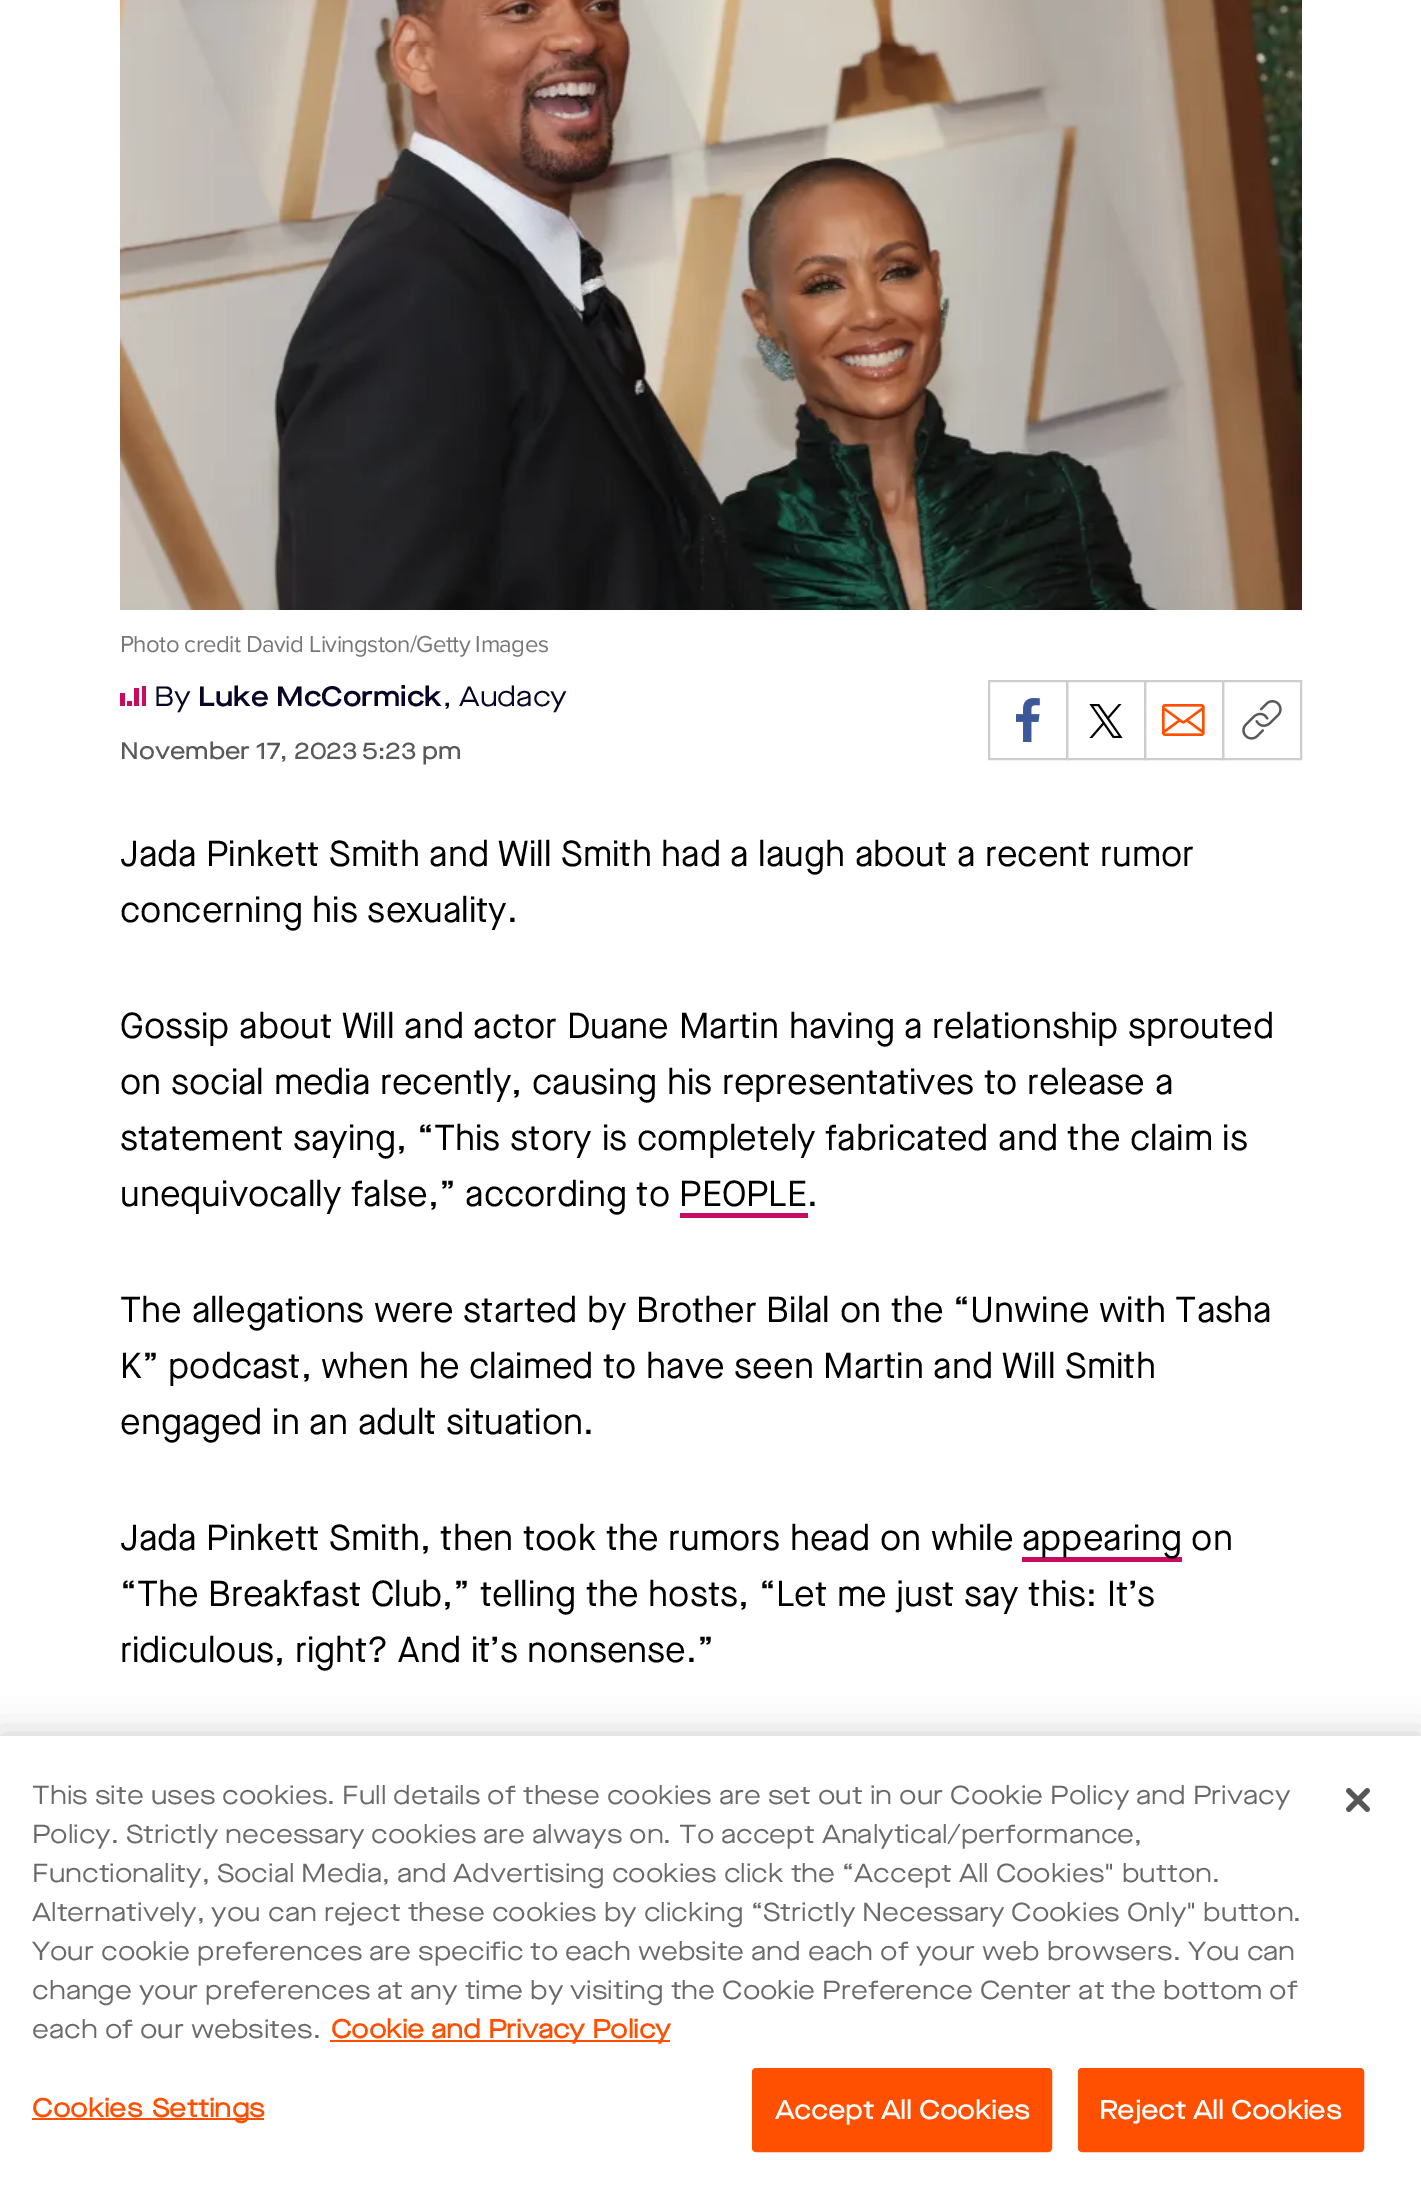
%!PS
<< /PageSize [1421 2193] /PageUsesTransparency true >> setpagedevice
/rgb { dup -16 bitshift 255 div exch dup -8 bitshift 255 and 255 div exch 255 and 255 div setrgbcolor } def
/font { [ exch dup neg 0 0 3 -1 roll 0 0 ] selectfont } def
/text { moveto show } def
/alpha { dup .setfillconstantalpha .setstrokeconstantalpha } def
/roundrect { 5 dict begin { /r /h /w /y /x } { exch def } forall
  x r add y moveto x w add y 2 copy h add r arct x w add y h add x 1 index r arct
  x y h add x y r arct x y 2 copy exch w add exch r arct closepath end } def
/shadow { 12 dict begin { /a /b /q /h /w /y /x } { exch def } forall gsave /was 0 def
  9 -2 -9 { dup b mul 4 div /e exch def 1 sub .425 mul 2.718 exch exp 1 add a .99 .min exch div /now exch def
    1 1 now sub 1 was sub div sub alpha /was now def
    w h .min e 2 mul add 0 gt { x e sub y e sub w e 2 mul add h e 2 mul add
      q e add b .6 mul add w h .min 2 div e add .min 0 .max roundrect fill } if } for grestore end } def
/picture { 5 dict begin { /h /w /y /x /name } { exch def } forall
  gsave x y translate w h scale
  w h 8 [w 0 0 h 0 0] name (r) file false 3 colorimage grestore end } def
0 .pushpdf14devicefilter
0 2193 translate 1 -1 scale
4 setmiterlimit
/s1 { /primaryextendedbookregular-Regular 28 font 16#090527 rgb } def
/s2 { /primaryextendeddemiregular-SemiBold 28 font 16#090527 rgb } def
/s3 { /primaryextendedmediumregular-Medium 24 font 16#595959 rgb } def
/s4 { /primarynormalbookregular-Regular 36 font 16#000000 rgb } def
/s5 { /primaryextendedbookregular-Regular 26 font 16#696969 rgb } def
/s6 { /primaryextendedbookregular-Bold 26 font 16#FE5000 rgb } def
16#FFFFFF rgb
0 0 1421 2193 rectfill
(pic1.raw) 120 0 1182 610 picture
/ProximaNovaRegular-Regular 24 font
16#777777 rgb
120 652 moveto -0.6 0 (Photo credit David Livingston/Getty Images) ashow
16#C80B60 rgb
120 693 5 13 rectfill
127 701 5 5 rectfill
134 688 5 18 rectfill
142 686 4 20 rectfill
s1
(By) 154 706 text
s2
(Luke McCormick) 198 706 text
s1
(, Audacy) 443 706 text
s3
(November 17, 2023) 120 759 text
(5:23 pm) 362 759 text
16#CDCDCD rgb
2 setlinewidth
989 681 78 78 rectstroke
(pic2.raw) 1016 698 24 44 picture
1067 681 78 78 rectstroke
(pic3.raw) 1089 704 34 34 picture
1145 681 78 78 rectstroke
(pic4.raw) 1162 704 43 32 picture
1223 681 78 78 rectstroke
(pic5.raw) 1242 700 40 40 picture
s4
(Jada Pinkett Smith and Will Smith had a laugh about a recent rumor) 120 866 text
(concerning his sexuality.) 120 922 text
(Gossip about Will and actor Duane Martin having a relationship sprouted) 120 1038 text
(on social media recently, causing his representatives to release a) 120 1094 text
(statement saying, “This story is completely fabricated and the claim is) 120 1150 text
(unequivocally false,” according to PEOPLE.) 120 1206 text
gsave 680 1213 moveto 808 1213 lineto 808 1218 lineto 680 1218 lineto closepath clip newpath
<< /ShadingType 2 /ColorSpace /DeviceRGB /Coords [744 1170 744 1218] /Extend [true true] /Function << /FunctionType 3 /Domain [0 1] /Functions [<< /FunctionType 2 /Domain [0 1] /C0 [1 1 1] /C1 [1 1 1] /N 1 >> << /FunctionType 2 /Domain [0 1] /C0 [0.784 0.043 0.376] /C1 [0.784 0.043 0.376] /N 1 >>] /Bounds [0.89] /Encode [0 1 0 1] >> >> shfill grestore
(The allegations were started by Brother Bilal on the “Unwine with Tasha) 120 1322 text
(K” podcast, when he claimed to have seen Martin and Will Smith) 120 1378 text
(engaged in an adult situation.) 120 1434 text
120 1550 moveto 0.1 0 32 (Jada Pinkett Smith, then took the rumors head on while) widthshow
gsave 1022 1557 moveto 1182 1557 lineto 1182 1562 lineto 1022 1562 lineto closepath clip newpath
<< /ShadingType 2 /ColorSpace /DeviceRGB /Coords [1102 1514 1102 1562] /Extend [true true] /Function << /FunctionType 3 /Domain [0 1] /Functions [<< /FunctionType 2 /Domain [0 1] /C0 [1 1 1] /C1 [1 1 1] /N 1 >> << /FunctionType 2 /Domain [0 1] /C0 [0.784 0.043 0.376] /C1 [0.784 0.043 0.376] /N 1 >>] /Bounds [0.89] /Encode [0 1 0 1] >> >> shfill grestore
(appearing on) 1022 1550 text
(“The Breakfast Club,” telling the hosts, “Let me just say this: It’s) 120 1606 text
(ridiculous, right? And it’s nonsense.”) 120 1662 text
0 1736 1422 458 0 18 0.2 shadow
16#FFFFFF rgb
0 1736 1421 457 rectfill
s5
(This site uses cookies. Full details of these cookies are set out in our Cookie Policy and Privacy) 32 1804 text
(Policy. Strictly necessary cookies are always on.) 32 1843 text
(To accept Analytical/performance,) 679 1843 text
(Functionality, Social Media, and Advertising cookies click the “Accept All Cookies" button.) 32 1882 text
(Alternatively, you can reject these cookies by clicking “Strictly Necessary Cookies Only" button.) 32 1921 text
(Your cookie preferences are specific to each website and each of your web browsers. You can) 32 1960 text
(change your preferences at any time by visiting the Cookie Preference Center at the bottom of) 32 1999 text
(each of our websites.) 32 2038 text
16#FE5000 rgb
330 2040 340 2 rectfill
s6
(Cookie and Privacy Policy) 331 2038 text
32 2118 232 2 rectfill
32 2117 moveto 2 0 32 0.25 0 (Cookies Settings) awidthshow
753 2069 298 82 3 roundrect gsave fill grestore
stroke
16#FFFFFF rgb
775 2119 moveto 0.25 0 (Accept All Cookies) ashow
16#FE5000 rgb
1079 2069 284 82 3 roundrect gsave fill grestore
stroke
16#FFFFFF rgb
1099 2119 moveto 0.25 0 (Reject All Cookies) ashow
(pic6.raw) 1346 1788 24 24 picture
.poppdf14devicefilter showpage
